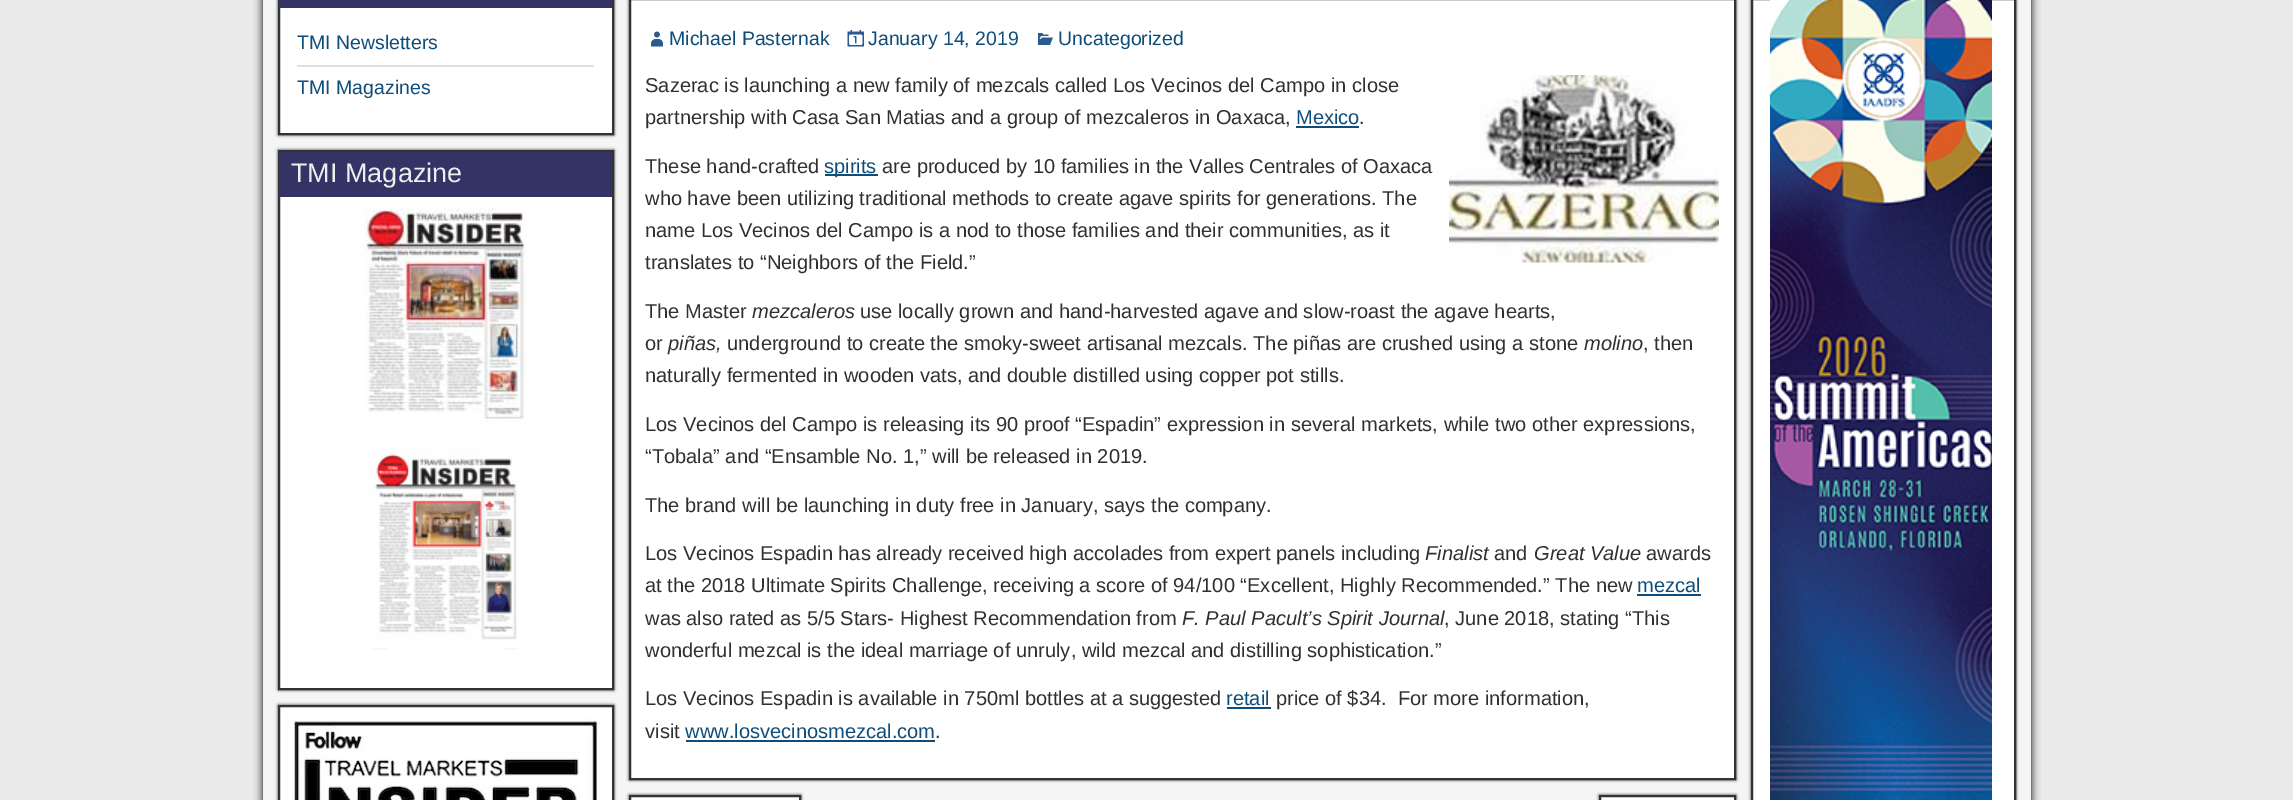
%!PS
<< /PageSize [2293 800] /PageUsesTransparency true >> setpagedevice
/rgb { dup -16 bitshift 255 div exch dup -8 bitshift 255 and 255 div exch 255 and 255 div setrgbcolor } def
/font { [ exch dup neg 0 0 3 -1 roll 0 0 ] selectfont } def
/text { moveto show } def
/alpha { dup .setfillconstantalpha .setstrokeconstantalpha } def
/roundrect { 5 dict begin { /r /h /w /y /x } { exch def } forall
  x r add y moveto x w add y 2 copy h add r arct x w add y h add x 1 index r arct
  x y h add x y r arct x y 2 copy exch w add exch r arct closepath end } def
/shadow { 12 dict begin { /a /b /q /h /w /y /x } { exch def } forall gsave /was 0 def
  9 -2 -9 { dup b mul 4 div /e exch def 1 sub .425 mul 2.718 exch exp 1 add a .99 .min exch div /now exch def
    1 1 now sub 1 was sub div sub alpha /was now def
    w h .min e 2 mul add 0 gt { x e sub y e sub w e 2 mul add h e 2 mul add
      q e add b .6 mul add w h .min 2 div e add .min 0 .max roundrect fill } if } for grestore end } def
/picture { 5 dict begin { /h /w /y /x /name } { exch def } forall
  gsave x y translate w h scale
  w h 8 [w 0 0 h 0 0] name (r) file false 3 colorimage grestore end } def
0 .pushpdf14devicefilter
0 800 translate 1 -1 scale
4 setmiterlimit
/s1 { /LiberationSans-Regular 19.5 font 16#0E4D7A rgb } def
/s2 { /LiberationSans-Regular 27 font 16#EEEEEE rgb } def
/s3 { /LiberationSans-Regular 20.1 font 16#303030 rgb } def
/s4 { /LiberationSans-Regular 20.1 font 16#0E4D7A rgb } def
/s5 { /LiberationSans-Italic 20.1 font 16#303030 rgb } def
16#EAEAEA rgb
0 0 2293 800 rectfill
16#000000 rgb
263 -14 1768 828 0 4.5 1 shadow
16#F5F5F5 rgb
263 0 1768 800 rectfill
16#333333 rgb
278 -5 336 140 0 1.5 1 shadow
16#FFFFFF rgb
280 8 332 125 rectfill
16#333333 rgb
2 setlinewidth
279 -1 334 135 rectstroke
16#333366 rgb
279 0 333 8 rectfill
16#E0E0E0 rgb
297 65 297 2 rectfill
s1
(TMI Newsletters) 297 49 text
(TMI Magazines) 297 94 text
16#333333 rgb
278 150 336 540 0 1.5 1 shadow
16#FFFFFF rgb
280 197 332 491 rectfill
16#333333 rgb
279 151 334 538 rectstroke
16#333366 rgb
279 152 333 45 rectfill
s2
(TMI Magazine) 291 182 text
(pic1.raw) 364 208 163 214 picture
(pic2.raw) 366 448 152 202 picture
16#333333 rgb
278 705 336 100 0 1.5 1 shadow
16#FFFFFF rgb
279 706 moveto 613 706 lineto 613 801 lineto 279 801 lineto closepath gsave fill grestore
16#333333 rgb
stroke
(pic3.raw) 291 718 309 82 picture
629 -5 1107 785 0 1.5 1 shadow
16#FFFFFF rgb
630 -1 moveto 1735 -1 lineto 1735 779 lineto 630 779 lineto closepath gsave fill grestore
16#333333 rgb
stroke
(pic4.raw) 651 31 12 16 picture
s1
(Michael Pasternak) 669 45 text
(pic5.raw) 847 30 17 17 picture
(January 14, 2019) 868 45 text
(pic6.raw) 1038 33 15 12 picture
(Uncategorized) 1058 45 text
s3
(Sazerac is launching a new family of mezcals called Los Vecinos del Campo in close) 645 92 text
(pic7.raw) 1449 75 270 188 picture
(partnership with Casa San Matias and a group of mezcaleros in Oaxaca,) 645 124 text
s4
(Mexico) 1296 124 text
1296 126 63 2 rectfill
s3
(.) 1359 124 text
(These hand-crafted) 645 173 text
16#0E4D7A rgb
825 174 53 2 rectfill
(spirits) 824 173 text
s3
(are produced by 10 families in the Valles Centrales of Oaxaca) 882 173 text
(who have been utilizing traditional methods to create agave spirits for generations. The) 645 205 text
(name Los Vecinos del Campo is a nod to those families and their communities, as it) 645 237 text
(translates to “Neighbors of the Field.”) 645 269 text
(The Master) 645 318 text
s5
(mezcaleros) 752 318 text
s3
(use locally grown and hand-harvested agave and slow-roast the agave hearts,) 860 318 text
(or) 645 350 text
s5
(piñas,) 668 350 text
s3
(underground to create the smoky-sweet artisanal mezcals. The piñas are crushed using a stone) 727 350 text
s5
(molino) 1584 350 text
s3
(, then) 1643 350 text
(naturally fermented in wooden vats, and double distilled using copper pot stills.) 645 382 text
(Los Vecinos del Campo is releasing its 90 proof “Espadin” expression in several markets, while two other expressions,) 645 431 text
(“Tobala” and “Ensamble No. 1,” will be released in 2019.) 645 463 text
(The brand will be launching in duty free in January, says the company.) 645 512 text
(Los Vecinos Espadin has already received high accolades from expert panels including) 645 560 text
s5
(Finalist) 1425 560 text
s3
(and) 1494 560 text
s5
(Great Value) 1534 560 text
s3
(awards) 1646 560 text
(at the 2018 Ultimate Spirits Challenge, receiving a score of 94/100 “Excellent, Highly Recommended.” The new) 645 592 text
s4
(mezcal) 1637 592 text
1637 594 64 2 rectfill
s3
(was also rated as 5/5 Stars- Highest Recommendation from) 645 625 text
s5
(F. Paul Pacult’s Spirit Journal) 1182 625 text
s3
(, June 2018, stating “This) 1444 625 text
(wonderful mezcal is the ideal marriage of unruly, wild mezcal and distilling sophistication.”) 645 657 text
(Los Vecinos Espadin is available in 750ml bottles at a suggested) 645 705 text
s4
(retail) 1226 705 text
1227 707 44 2 rectfill
s3
(price of $34.  For more information,) 1276 705 text
(visit) 645 738 text
s4
(www.losvecinosmezcal.com) 685 738 text
686 740 249 2 rectfill
s3
(.) 935 738 text
16#333333 rgb
629 795 172 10 0 1.5 1 shadow
16#FFFFFF rgb
630 796 moveto 800 796 lineto 800 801 lineto 630 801 lineto closepath gsave fill grestore
16#333333 rgb
stroke
1599 795 137 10 0 1.5 1 shadow
16#FFFFFF rgb
1600 796 moveto 1735 796 lineto 1735 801 lineto 1600 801 lineto closepath gsave fill grestore
16#333333 rgb
stroke
1751 -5 265 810 0 1.5 1 shadow
16#FFFFFF rgb
1752 -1 moveto 2015 -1 lineto 2015 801 lineto 1752 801 lineto closepath gsave fill grestore
16#333333 rgb
stroke
(pic8.raw) 1770 0 222 800 picture
.poppdf14devicefilter showpage
